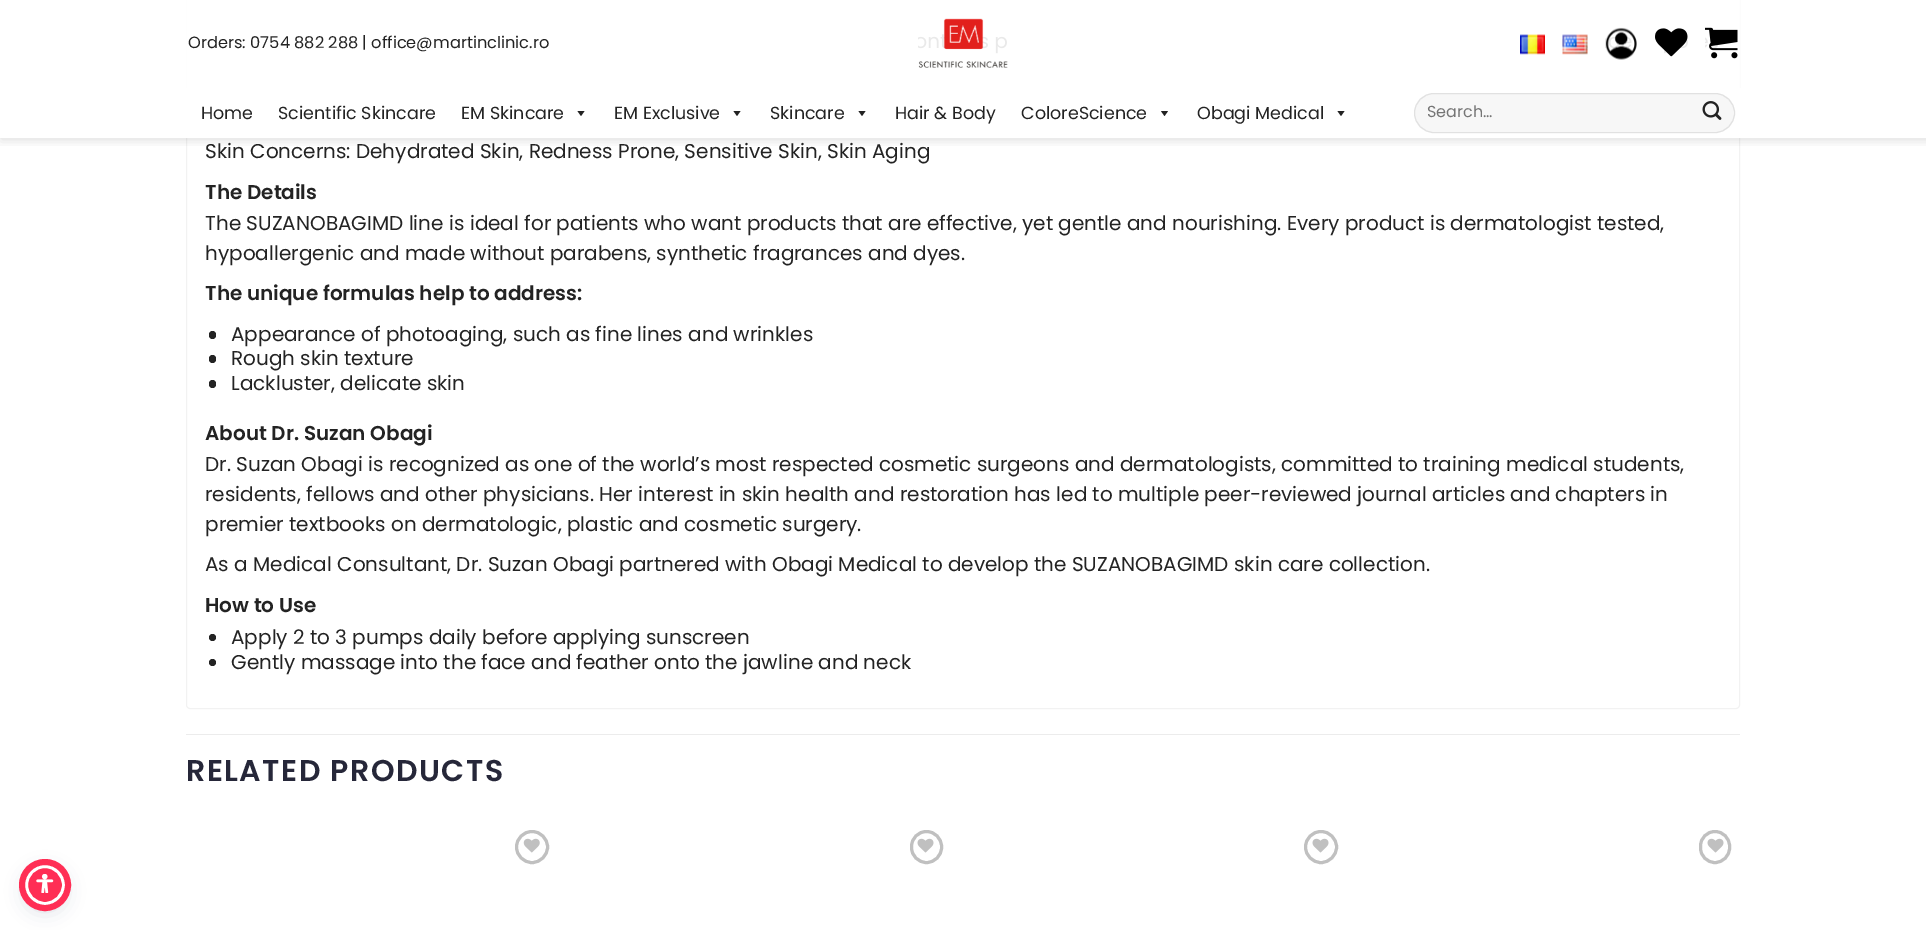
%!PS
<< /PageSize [1926 930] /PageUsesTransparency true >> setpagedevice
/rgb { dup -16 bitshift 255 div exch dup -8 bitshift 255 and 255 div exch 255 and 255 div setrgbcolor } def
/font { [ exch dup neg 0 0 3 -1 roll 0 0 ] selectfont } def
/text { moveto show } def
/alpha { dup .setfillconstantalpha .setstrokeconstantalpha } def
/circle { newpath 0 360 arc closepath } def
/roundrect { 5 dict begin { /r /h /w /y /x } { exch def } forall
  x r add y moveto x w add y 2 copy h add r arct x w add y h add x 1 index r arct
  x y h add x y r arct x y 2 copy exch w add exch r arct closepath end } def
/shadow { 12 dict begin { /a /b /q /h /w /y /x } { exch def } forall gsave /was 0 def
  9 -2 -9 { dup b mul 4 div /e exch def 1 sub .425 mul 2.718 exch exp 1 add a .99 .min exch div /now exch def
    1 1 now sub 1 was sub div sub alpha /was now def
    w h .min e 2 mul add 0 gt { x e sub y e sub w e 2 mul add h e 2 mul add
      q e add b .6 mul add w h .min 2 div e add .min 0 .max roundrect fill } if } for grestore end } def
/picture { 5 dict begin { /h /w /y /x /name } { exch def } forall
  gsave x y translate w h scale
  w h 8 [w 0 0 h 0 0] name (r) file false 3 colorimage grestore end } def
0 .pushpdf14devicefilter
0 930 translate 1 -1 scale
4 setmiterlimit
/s1 { /Poppins-Regular 16.25 font 16#232323 rgb } def
/s2 { /Poppins-Regular 17.5 font 16#232323 rgb } def
/s3 { /Poppins-Regular 16 font 16#757575 rgb } def
/s4 { /Poppins-Regular 20 font 16#232323 rgb } def
/s5 { /Poppins-SemiBold 20 font 16#232323 rgb } def
16#FFFFFF rgb
0 0 1926 930 rectfill
16#232323 rgb
209 331 7 8 3.5 roundrect fill
209 355 7 8 3.5 roundrect fill
209 380 7 8 3.5 roundrect fill
212.5 637.5 3.5 circle fill
212.5 662.5 3.5 circle fill
16#F2F2F2 rgb
186.5 -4.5 1553 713 3.5 roundrect stroke
gsave
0 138 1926 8 rectclip
16#000000 rgb
1 1 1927 138 0 6 0.15 shadow
grestore
0.9 alpha
16#FFFFFF rgb
186 0 1554 88 rectfill
1 alpha
s1
(Orders: 0754 882 288 | office@martinclinic.ro) 188 48 text
(pic1.raw) 918 18 90 50 picture
(pic2.raw) 1520 34 25 21 picture
(pic3.raw) 1562 34 26 21 picture
(pic4.raw) 1605 27 32 33 picture
(pic5.raw) 1655 28 33 29 picture
(pic6.raw) 1705 27 33 32 picture
16#FFFFFF rgb
0 88 1926 50 rectfill
s2
(Home) 201 119 text
(Scientific Skincare) 278 119 text
(EM Skincare) 461 119 text
16#222222 rgb
584.5 111 moveto 581 116 lineto 577.5 111 lineto closepath fill
s2
(EM Exclusive) 614 119 text
16#222222 rgb
740.5 111 moveto 737 116 lineto 733.5 111 lineto closepath fill
s2
(Skincare) 770 119 text
16#222222 rgb
865.5 111 moveto 862 116 lineto 858.5 111 lineto closepath fill
s2
(Hair & Body) 895 119 text
(ColoreScience) 1021 119 text
16#222222 rgb
1168 111 moveto 1164.5 116 lineto 1161 111 lineto closepath fill
s2
(Obagi Medical) 1197 119 text
16#222222 rgb
1344.5 111 moveto 1341 116 lineto 1337.5 111 lineto closepath fill
16#F7F7F7 rgb
1414 93 321 40 20 roundrect fill
0.09 alpha
16#000000 rgb
1414.5 93.5 320 39 19.5 roundrect stroke
1 alpha
s3
(Search…) 1427 117 text
(pic7.raw) 1702 101 20 19 picture
s4
(Skin Concerns: Dehydrated Skin, Redness Prone, Sensitive Skin, Skin Aging) 205 158 text
s5
(The Details) 205 199 text
s4
(The SUZANOBAGIMD line is ideal for patients who want products that are effective, yet gentle and nourishing. Every product is dermatologist tested,) 205 230 text
(hypoallergenic and made without parabens, synthetic fragrances and dyes.) 205 260 text
s5
(The unique formulas help to address:) 205 300 text
s4
(Appearance of photoaging, such as fine lines and wrinkles) 231 341 text
(Rough skin texture) 231 365 text
(Lackluster, delicate skin) 231 390 text
s5
(About Dr. Suzan Obagi) 205 440 text
s4
(Dr. Suzan Obagi is recognized as one of the world’s most respected cosmetic surgeons and dermatologists, committed to training medical students,) 205 471 text
(residents, fellows and other physicians. Her interest in skin health and restoration has led to multiple peer-reviewed journal articles and chapters in) 205 501 text
(premier textbooks on dermatologic, plastic and cosmetic surgery.) 205 531 text
(As a Medical Consultant, Dr. Suzan Obagi partnered with Obagi Medical to develop the SUZANOBAGIMD skin care collection.) 205 571 text
s5
(How to Use) 205 612 text
s4
(Apply 2 to 3 pumps daily before applying sunscreen) 231 644 text
(Gently massage into the face and feather onto the jawline and neck) 231 669 text
16#ECECEC rgb
186 734 1554 1 rectfill
/Poppins-SemiBold 30 font
16#262739 rgb
186 781 moveto 1.5 0 (RELATED PRODUCTS) ashow
16#C0C0C0 rgb
3 setlinewidth
532 847 15.5 circle stroke
(pic8.raw) 523 838 17 15 picture
911.5 831.5 30 31 15 roundrect stroke
(pic9.raw) 917 838 17 15 picture
1321 847 15.5 circle stroke
(pic9.raw) 1312 838 17 15 picture
1700.5 831.5 29 31 14.5 roundrect stroke
(pic9.raw) 1707 838 17 15 picture
16#5D6494 rgb
25 868 40 40 20 2.5 0.2 shadow
16#252C61 rgb
25 871 40 40 20 9.5 0.15 shadow
16#FF2E55 rgb
45 885 18.5 circle gsave fill grestore
16#FFFFFF rgb
stroke
16#FF2E55 rgb
6 setlinewidth
45 885 23 circle stroke
(pic10.raw) 36 874 18 19 picture
.poppdf14devicefilter showpage
